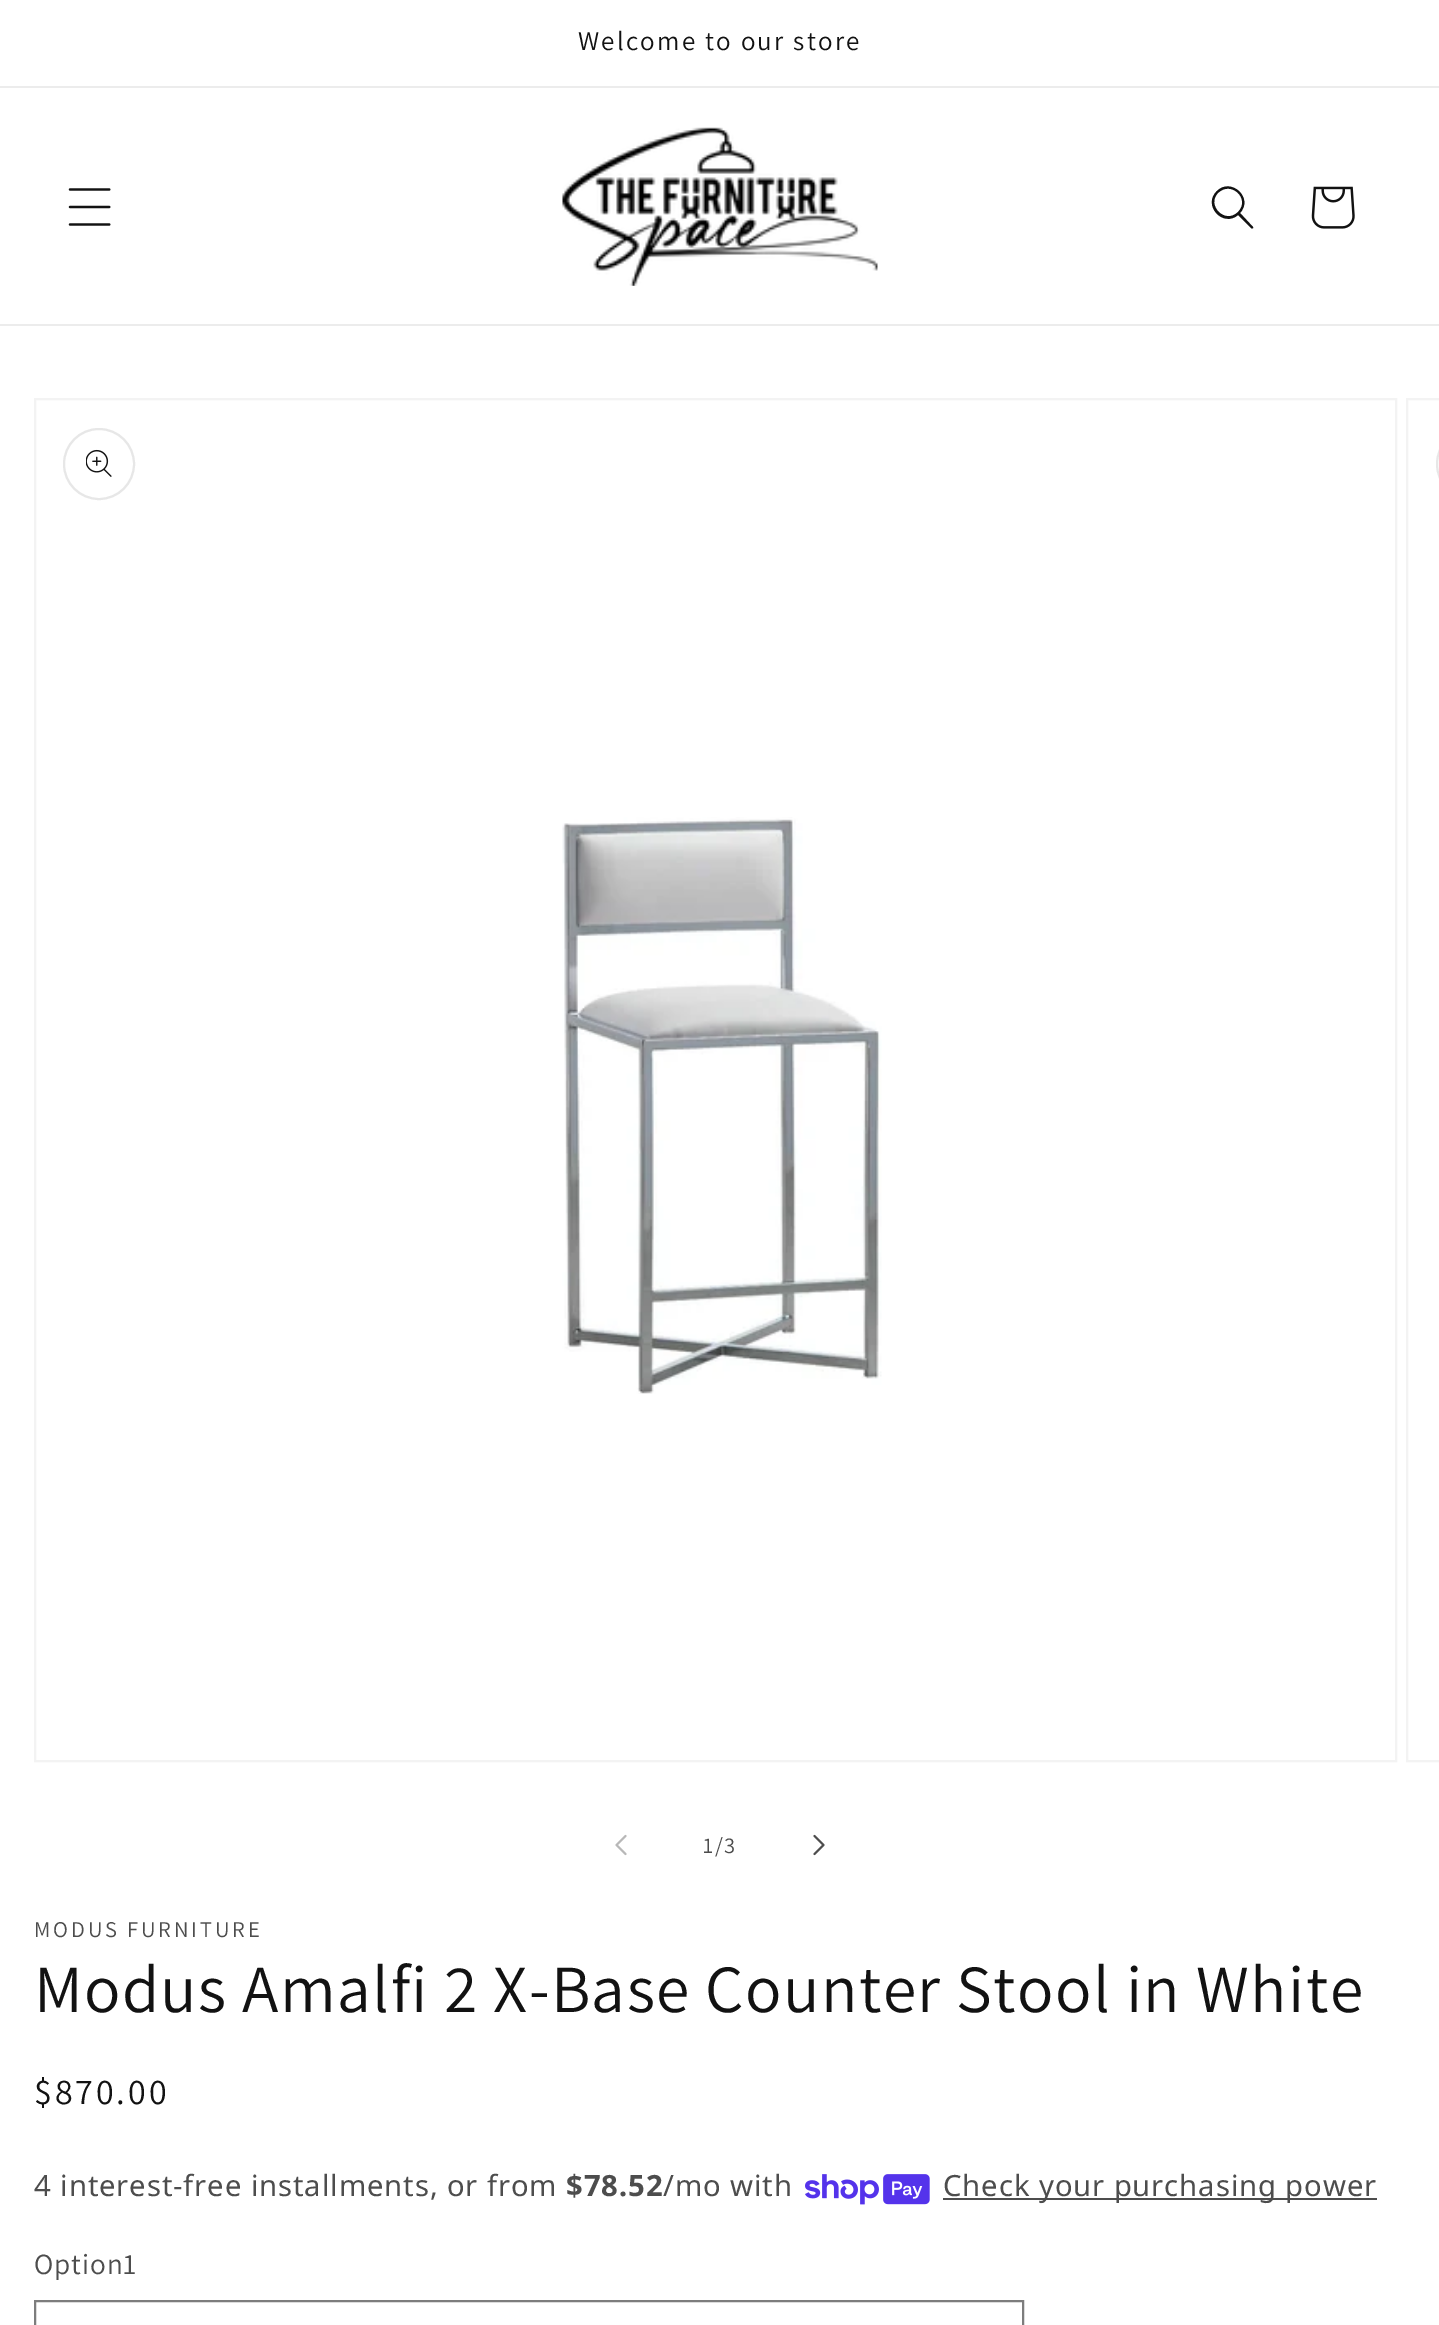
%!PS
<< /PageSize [1439 2325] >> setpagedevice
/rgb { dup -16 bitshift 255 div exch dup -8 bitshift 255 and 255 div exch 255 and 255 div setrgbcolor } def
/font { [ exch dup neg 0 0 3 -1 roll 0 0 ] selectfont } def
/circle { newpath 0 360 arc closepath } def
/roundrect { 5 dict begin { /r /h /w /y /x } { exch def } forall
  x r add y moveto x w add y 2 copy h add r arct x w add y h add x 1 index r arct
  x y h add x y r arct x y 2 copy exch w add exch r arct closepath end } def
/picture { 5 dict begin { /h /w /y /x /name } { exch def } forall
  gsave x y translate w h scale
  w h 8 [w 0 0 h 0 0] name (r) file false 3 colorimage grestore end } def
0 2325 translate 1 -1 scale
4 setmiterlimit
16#FFFFFF rgb
0 0 1439 2325 rectfill
16#ECECEC rgb
0 86 1439 2 rectfill
/Assistant-Regular 27 font
16#121212 rgb
578 50 moveto 2.25 0 (Welcome to our store) ashow
16#ECECEC rgb
0 324 1439 2 rectfill
(pic1.raw) 68 188 43 38 picture
(pic2.raw) 562 127 316 159 picture
16#121212 rgb
1238 212 moveto 1225 225 1206 205 1218 193 curveto 1231 180 1251 199 1238 212 curveto 1238 215 moveto 1223 228 1202 205 1217 191 curveto 1231 177 1254 198 1240 213 curveto 1253 227 lineto 1254 228 1252 229 1251 228 curveto closepath eofill
(pic3.raw) 1311 186 44 43 picture
16#F3F3F3 rgb
2 setlinewidth
35 399 1361 1362 rectstroke
16#E7E7E7 rgb
99 464 35 circle stroke
(pic4.raw) 86 449 26 28 picture
(pic5.raw) 562 817 320 577 picture
16#F3F3F3 rgb
1407 399 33 1362 rectstroke
16#E7E7E7 rgb
1437 429 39 70 35 roundrect stroke
(pic6.raw) 615 1834 12 22 picture
/Assistant-Regular 22.5 font
16#4D4D4D rgb
703 1853 moveto 1.5 0 (1/3) ashow
(pic7.raw) 813 1834 12 22 picture
34 1937 moveto 2.9 0 (MODUS FURNITURE) ashow
/Assistant-Regular 67.5 font
16#121212 rgb
34 2012 moveto 1.35 0 (Modus Amalfi 2 X-Base Counter Stool in White) ashow
/Assistant-Regular 36 font
34 2104 moveto 2.9 0 ($870.00) ashow
/NotoSans-Regular 29.25 font
16#4D4D4D rgb
34 2196 moveto 0.9 0 (4 interest-free installments, or from) ashow
/NotoSans-Bold 29.25 font
566 2196 moveto 0.9 0 ($78.52) ashow
/NotoSans-Regular 29.25 font
663 2196 moveto 0.9 0 (/mo with) ashow
(pic8.raw) 805 2174 125 31 picture
943 2198 434 2 rectfill
943 2196 moveto 0.9 0 (Check your purchasing power) ashow
/Assistant-Regular 29.25 font
34 2274 moveto 0.9 0 (Option1) ashow
16#7D7D7D rgb
35 2301 988 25 rectstroke
showpage
